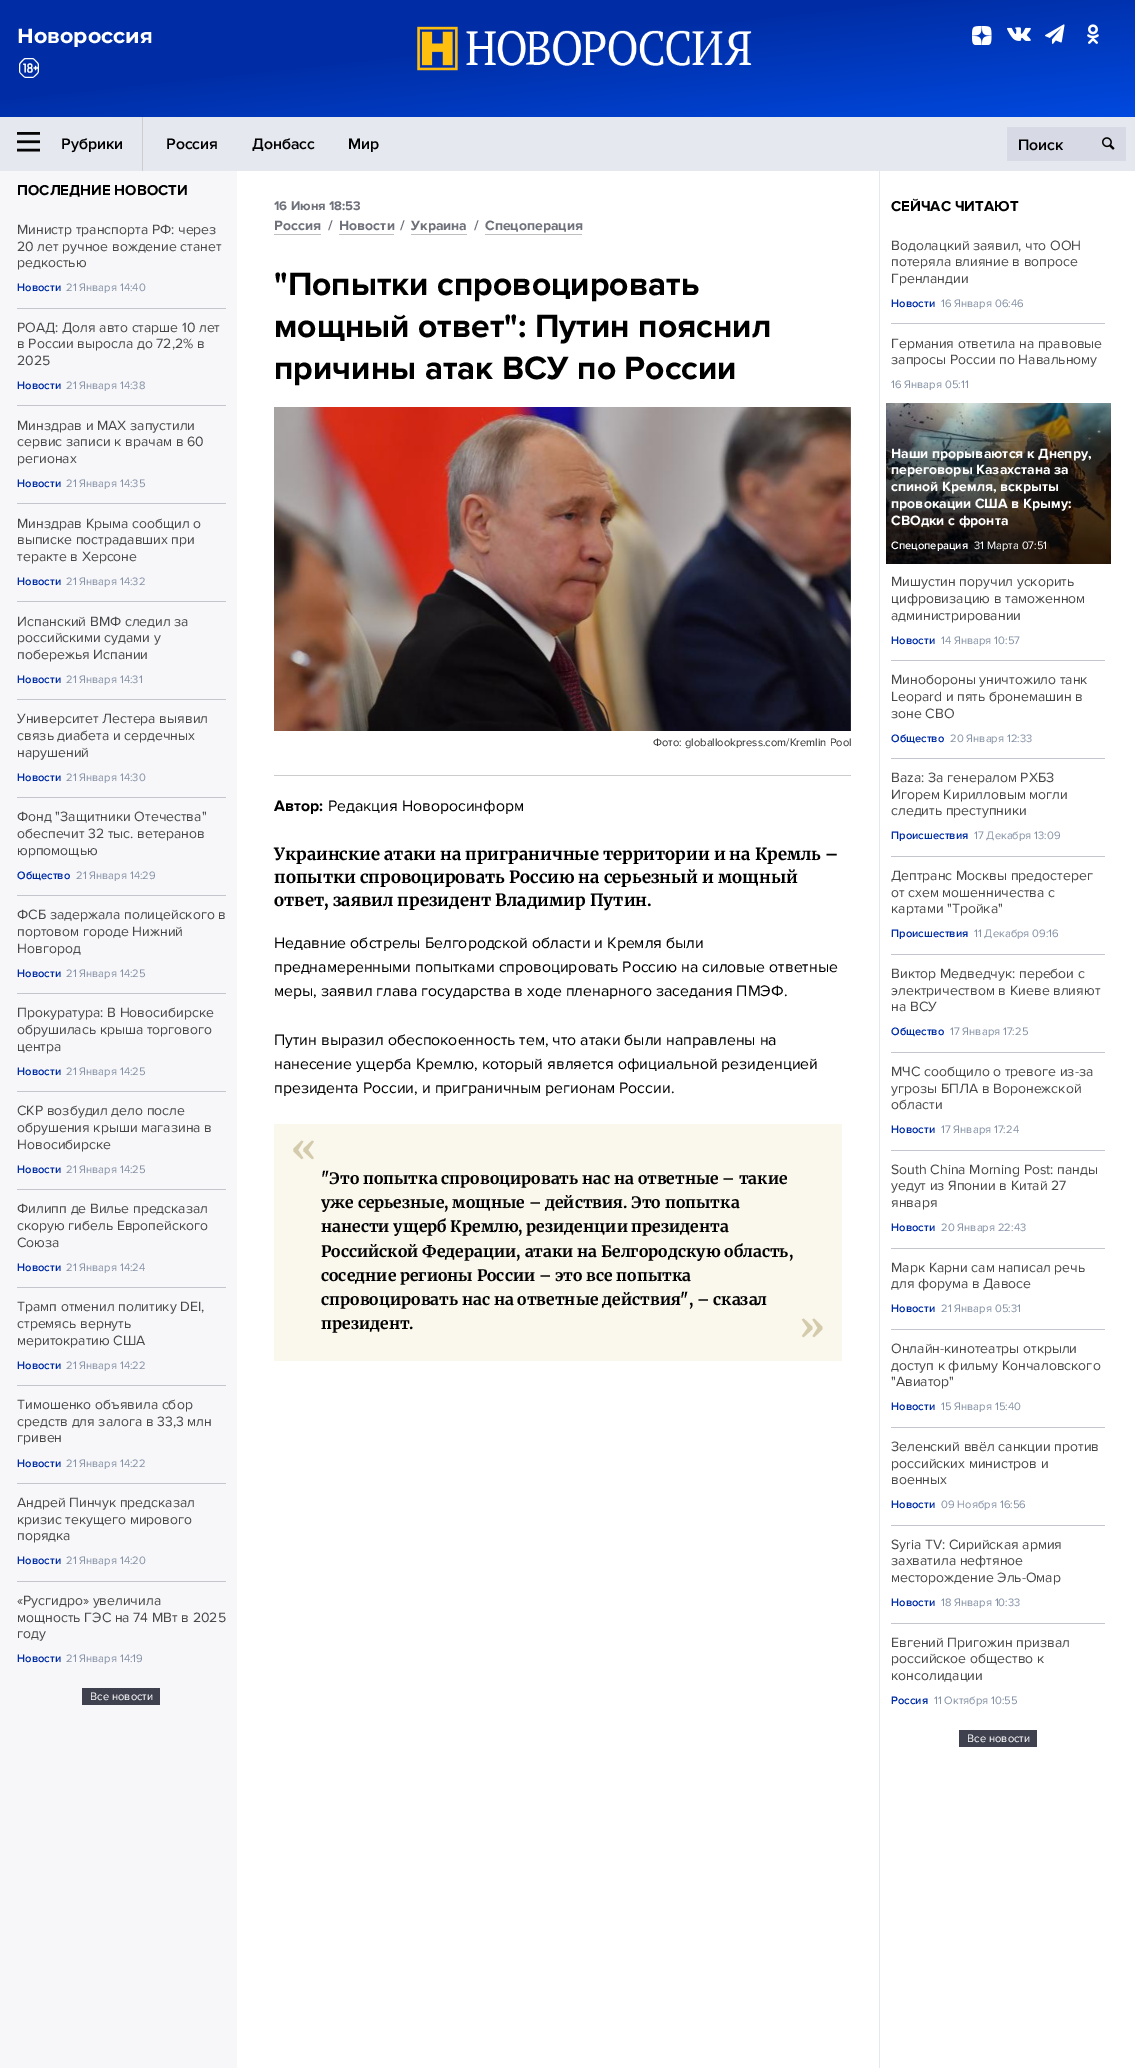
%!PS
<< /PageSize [1135 2068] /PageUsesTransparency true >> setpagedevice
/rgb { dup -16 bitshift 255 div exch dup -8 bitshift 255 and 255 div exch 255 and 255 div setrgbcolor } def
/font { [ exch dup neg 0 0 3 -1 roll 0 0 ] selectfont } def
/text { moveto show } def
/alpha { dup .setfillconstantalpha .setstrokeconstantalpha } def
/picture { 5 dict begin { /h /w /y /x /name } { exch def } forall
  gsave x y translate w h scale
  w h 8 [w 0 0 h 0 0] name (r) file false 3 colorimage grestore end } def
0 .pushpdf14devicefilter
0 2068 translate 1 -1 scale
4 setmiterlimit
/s1 { /Montserrat-Bold 20.5 font 16#FFFFFF rgb } def
/s2 { /ProximaNova-SemiBold 15.8 font 16#000000 rgb } def
/s3 { /ProximaNova-Bold 14.9 font 16#000000 rgb } def
/s4 { /ProximaNova-Regular 14 font 16#484848 rgb } def
/s5 { /ProximaNova-SemiBold 11.2 font 16#002DA5 rgb } def
/s6 { /ProximaNova-Regular 11.2 font 16#8592A5 rgb } def
/s7 { /ProximaNova-Regular 11.2 font 16#FFFFFF rgb } def
/s8 { /ProximaNova-Bold 13 font 16#6E707A rgb } def
/s9 { /ProximaNova-Bold 14 font 16#6E707A rgb } def
/s10 { /ProximaNova-Bold 33.5 font 16#000000 rgb } def
/s11 { /ProximaNova-Regular 11.2 font 16#333333 rgb } def
/s12 { /ProximaNova-Bold 15.8 font 16#000000 rgb } def
/s13 { /ProximaNova-Regular 15.8 font 16#000000 rgb } def
/s14 { /Merriweather-Bold 16.75 font 16#000000 rgb } def
/s15 { /Merriweather-Bold 37 font 16#D4CBAC rgb } def
/s16 { /Merriweather-Bold 15.8 font 16#000000 rgb } def
/s17 { /ProximaNova-Bold 14 font 16#FFFFFF rgb } def
/s18 { /ProximaNova-SemiBold 11.2 font 16#FFFFFF rgb } def
16#FFFFFF rgb
0 0 1135 2068 rectfill
gsave 0 0 moveto 1135 0 lineto 1135 117 lineto 0 117 lineto closepath clip newpath
<< /ShadingType 2 /ColorSpace /DeviceRGB /Coords [555 -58 580 175] /Extend [true true] /Function << /FunctionType 3 /Domain [0 1] /Functions [<< /FunctionType 2 /Domain [0 1] /C0 [0 0.176 0.647] /C1 [0 0.176 0.647] /N 1 >> << /FunctionType 2 /Domain [0 1] /C0 [0 0.176 0.647] /C1 [0 0.286 0.875] /N 1 >>] /Bounds [0.4] /Encode [0 1 0 1] >> >> shfill grestore
s1
(Новороссия) 17 43 text
(pic1.raw) 417 26 335 45 picture
(pic2.raw) 972 26 20 19 picture
(pic3.raw) 1007 27 24 14 picture
(pic4.raw) 1045 24 20 20 picture
(pic5.raw) 1087 24 12 20 picture
(pic6.raw) 19 58 20 20 picture
16#E6E8EF rgb
0 117 1135 54 rectfill
16#CDCDCF rgb
142 117 1 54 rectfill
(pic7.raw) 17 132 23 20 picture
s2
(Рубрики) 61 149 text
(Россия) 166 149 text
(Донбасс) 252 149 text
(Мир) 348 149 text
16#D7DAE4 rgb
1007 127 119 34 rectfill
s2
(Поиск) 1018 150 text
(pic8.raw) 1102 137 13 13 picture
16#F7F7FA rgb
0 171 237 1897 rectfill
s3
(ПОСЛЕДНИЕ НОВОСТИ) 17 195 text
16#C5C6CD rgb
17 308 209 1 rectfill
s4
(Министр транспорта РФ: через) 17 234 text
(20 лет ручное вождение станет) 17 251 text
(редкостью) 17 267 text
s5
(Новости) 17 291 text
s6
(21 Января 14:40) 66 291 text
16#C5C6CD rgb
17 405 209 1 rectfill
s4
(РОАД: Доля авто старше 10 лет) 17 332 text
(в России выросла до 72,2% в) 17 348 text
(2025) 17 365 text
s5
(Новости) 17 389 text
s6
(21 Января 14:38) 66 389 text
16#C5C6CD rgb
17 503 209 1 rectfill
s4
(Минздрав и MAX запустили) 17 430 text
(сервис записи к врачам в 60) 17 446 text
(регионах) 17 463 text
s5
(Новости) 17 487 text
s6
(21 Января 14:35) 66 487 text
16#C5C6CD rgb
17 601 209 1 rectfill
s4
(Минздрав Крыма сообщил о) 17 528 text
(выписке пострадавших при) 17 544 text
(теракте в Херсоне) 17 561 text
s5
(Новости) 17 585 text
s6
(21 Января 14:32) 66 585 text
16#C5C6CD rgb
17 699 209 1 rectfill
s4
(Испанский ВМФ следил за) 17 626 text
(российскими судами у) 17 642 text
(побережья Испании) 17 659 text
s5
(Новости) 17 683 text
s6
(21 Января 14:31) 66 683 text
16#C5C6CD rgb
17 797 209 1 rectfill
s4
(Университет Лестера выявил) 17 723 text
(связь диабета и сердечных) 17 740 text
(нарушений) 17 757 text
s5
(Новости) 17 781 text
s6
(21 Января 14:30) 66 781 text
16#C5C6CD rgb
17 895 209 1 rectfill
s4
(Фонд "Защитники Отечества") 17 821 text
(обеспечит 32 тыс. ветеранов) 17 838 text
(юрпомощью) 17 855 text
s5
(Общество) 17 879 text
s6
(21 Января 14:29) 76 879 text
16#C5C6CD rgb
17 993 209 1 rectfill
s4
(ФСБ задержала полицейского в) 17 919 text
(портовом городе Нижний) 17 936 text
(Новгород) 17 953 text
s5
(Новости) 17 977 text
s6
(21 Января 14:25) 66 977 text
16#C5C6CD rgb
17 1091 209 1 rectfill
s4
(Прокуратура: В Новосибирске) 17 1017 text
(обрушилась крыша торгового) 17 1034 text
(центра) 17 1051 text
s5
(Новости) 17 1075 text
s6
(21 Января 14:25) 66 1075 text
16#C5C6CD rgb
17 1189 209 1 rectfill
s4
(СКР возбудил дело после) 17 1115 text
(обрушения крыши магазина в) 17 1132 text
(Новосибирске) 17 1149 text
s5
(Новости) 17 1173 text
s6
(21 Января 14:25) 66 1173 text
16#C5C6CD rgb
17 1287 209 1 rectfill
s4
(Филипп де Вилье предсказал) 17 1213 text
(скорую гибель Европейского) 17 1230 text
(Союза) 17 1247 text
s5
(Новости) 17 1271 text
s6
(21 Января 14:24) 66 1271 text
16#C5C6CD rgb
17 1385 209 1 rectfill
s4
(Трамп отменил политику DEI,) 17 1311 text
(стремясь вернуть) 17 1328 text
(меритократию США) 17 1345 text
s5
(Новости) 17 1369 text
s6
(21 Января 14:22) 66 1369 text
16#C5C6CD rgb
17 1483 209 1 rectfill
s4
(Тимошенко объявила сбор) 17 1409 text
(средств для залога в 33,3 млн) 17 1426 text
(гривен) 17 1442 text
s5
(Новости) 17 1467 text
s6
(21 Января 14:22) 66 1467 text
16#C5C6CD rgb
17 1581 209 1 rectfill
s4
(Андрей Пинчук предсказал) 17 1507 text
(кризис текущего мирового) 17 1524 text
(порядка) 17 1540 text
s5
(Новости) 17 1564 text
s6
(21 Января 14:20) 66 1564 text
s4
(«Русгидро» увеличила) 17 1605 text
(мощность ГЭС на 74 МВт в 2025) 17 1622 text
(году) 17 1638 text
s5
(Новости) 17 1662 text
s6
(21 Января 14:19) 66 1662 text
16#3F414F rgb
82 1688 78 17 rectfill
s7
(Все новости) 90 1700 text
s8
(16 Июня 18:53) 274 210 text
16#BFBFBF rgb
274 234 47 1 rectfill
s9
(Россия) 274 230 text
(/) 328 230 text
16#BFBFBF rgb
339 234 55 1 rectfill
s9
(Новости) 339 230 text
(/) 400 230 text
16#BFBFBF rgb
411 234 56 1 rectfill
s9
(Украина) 411 230 text
(/) 474 230 text
16#BFBFBF rgb
485 234 97 1 rectfill
s9
(Спецоперация) 485 230 text
s10
("Попытки спровоцировать) 274 295 text
(мощный ответ": Путин пояснил) 274 337 text
(причины атак ВСУ по России) 274 379 text
16#CCCCCC rgb
274 775 577 1 rectfill
(pic9.raw) 274 407 577 324 picture
s11
(Фото: globallookpress.com/Kremlin Pool) 653 746 text
s12
(Автор:) 274 811 text
s13
(Редакция Новоросинформ) 328 811 text
s14
(Украинские атаки на приграничные территории и на Кремль –) 274 860 text
(попытки спровоцировать Россию на серьезный и мощный) 274 883 text
(ответ, заявил президент Владимир Путин.) 274 906 text
s13
(Недавние обстрелы Белгородской области и Кремля были) 274 948 text
(преднамеренными попытками спровоцировать Россию на силовые ответные) 274 972 text
(меры, заявил глава государства в ходе пленарного заседания ПМЭФ.) 274 996 text
(Путин выразил обеспокоенность тем, что атаки были направлены на) 274 1045 text
(нанесение ущерба Кремлю, который является официальной резиденцией) 274 1069 text
(президента России, и приграничным регионам России.) 274 1093 text
16#FAF7EC rgb
274 1124 568 237 rectfill
s15
(«) 291 1161 text
s16
("Это попытка спровоцировать нас на ответные – такие) 321 1184 text
(уже серьезные, мощные – действия. Это попытка) 321 1208 text
(нанести ущерб Кремлю, резиденции президента) 321 1232 text
(Российской Федерации, атаки на Белгородскую область,) 321 1257 text
(соседние регионы России – это все попытка) 321 1281 text
(спровоцировать нас на ответные действия", – сказал) 321 1305 text
(президент.) 321 1329 text
s15
(») 799 1339 text
16#E6E8EF rgb
879 171 1 1897 rectfill
s3
(СЕЙЧАС ЧИТАЮТ) 891 211 text
16#C5C6CD rgb
891 323 214 1 rectfill
s4
(Водолацкий заявил, что ООН) 891 250 text
(потеряла влияние в вопросе) 891 266 text
(Гренландии) 891 283 text
s5
(Новости) 891 307 text
s6
(16 Января 06:46) 941 307 text
s4
(Германия ответила на правовые) 891 348 text
(запросы России по Навальному) 891 364 text
s6
(16 Января 05:11) 891 388 text
(pic10.raw) 886 403 225 161 picture
s17
(Наши прорываются к Днепру,) 891 458 text
(переговоры Казахстана за) 891 474 text
(спиной Кремля, вскрыты) 891 491 text
(провокации США в Крыму:) 891 508 text
(СВОдки с фронта) 891 525 text
0.75 alpha
16#000000 rgb
886 539 225 25 rectfill
1 alpha
s18
(Спецоперация) 891 549 text
s7
(31 Марта 07:51) 974 549 text
16#C5C6CD rgb
891 660 214 1 rectfill
s4
(Мишустин поручил ускорить) 891 586 text
(цифровизацию в таможенном) 891 603 text
(администрировании) 891 620 text
s5
(Новости) 891 644 text
s6
(14 Января 10:57) 941 644 text
16#C5C6CD rgb
891 758 214 1 rectfill
s4
(Минобороны уничтожило танк) 891 684 text
(Leopard и пять бронемашин в) 891 701 text
(зоне СВО) 891 718 text
s5
(Общество) 891 742 text
s6
(20 Января 12:33) 950 742 text
16#C5C6CD rgb
891 856 214 1 rectfill
s4
(Baza: За генералом РХБЗ) 891 782 text
(Игорем Кирилловым могли) 891 799 text
(следить преступники) 891 815 text
s5
(Происшествия) 891 839 text
s6
(17 Декабря 13:09) 974 839 text
16#C5C6CD rgb
891 954 214 1 rectfill
s4
(Дептранс Москвы предостерег) 891 880 text
(от схем мошенничества с) 891 897 text
(картами "Тройка") 891 913 text
s5
(Происшествия) 891 937 text
s6
(11 Декабря 09:16) 974 937 text
16#C5C6CD rgb
891 1052 214 1 rectfill
s4
(Виктор Медведчук: перебои с) 891 978 text
(электричеством в Киеве влияют) 891 995 text
(на ВСУ) 891 1011 text
s5
(Общество) 891 1035 text
s6
(17 Января 17:25) 950 1035 text
16#C5C6CD rgb
891 1150 214 1 rectfill
s4
(МЧС сообщило о тревоге из-за) 891 1076 text
(угрозы БПЛА в Воронежской) 891 1093 text
(области) 891 1109 text
s5
(Новости) 891 1133 text
s6
(17 Января 17:24) 941 1133 text
16#C5C6CD rgb
891 1248 214 1 rectfill
s4
(South China Morning Post: панды) 891 1174 text
(уедут из Японии в Китай 27) 891 1190 text
(января) 891 1207 text
s5
(Новости) 891 1231 text
s6
(20 Января 22:43) 941 1231 text
16#C5C6CD rgb
891 1329 214 1 rectfill
s4
(Марк Карни сам написал речь) 891 1272 text
(для форума в Давосе) 891 1288 text
s5
(Новости) 891 1312 text
s6
(21 Января 05:31) 941 1312 text
16#C5C6CD rgb
891 1427 214 1 rectfill
s4
(Онлайн-кинотеатры открыли) 891 1353 text
(доступ к фильму Кончаловского) 891 1370 text
("Авиатор") 891 1386 text
s5
(Новости) 891 1410 text
s6
(15 Января 15:40) 941 1410 text
16#C5C6CD rgb
891 1525 214 1 rectfill
s4
(Зеленский ввёл санкции против) 891 1451 text
(российских министров и) 891 1468 text
(военных) 891 1484 text
s5
(Новости) 891 1508 text
s6
(09 Ноября 16:56) 941 1508 text
16#C5C6CD rgb
891 1623 214 1 rectfill
s4
(Syria TV: Сирийская армия) 891 1549 text
(захватила нефтяное) 891 1565 text
(месторождение Эль-Омар) 891 1582 text
s5
(Новости) 891 1606 text
s6
(18 Января 10:33) 941 1606 text
s4
(Евгений Пригожин призвал) 891 1647 text
(российское общество к) 891 1663 text
(консолидации) 891 1680 text
s5
(Россия) 891 1704 text
s6
(11 Октября 10:55) 934 1704 text
16#3F414F rgb
959 1730 78 17 rectfill
s7
(Все новости) 967 1742 text
.poppdf14devicefilter showpage
